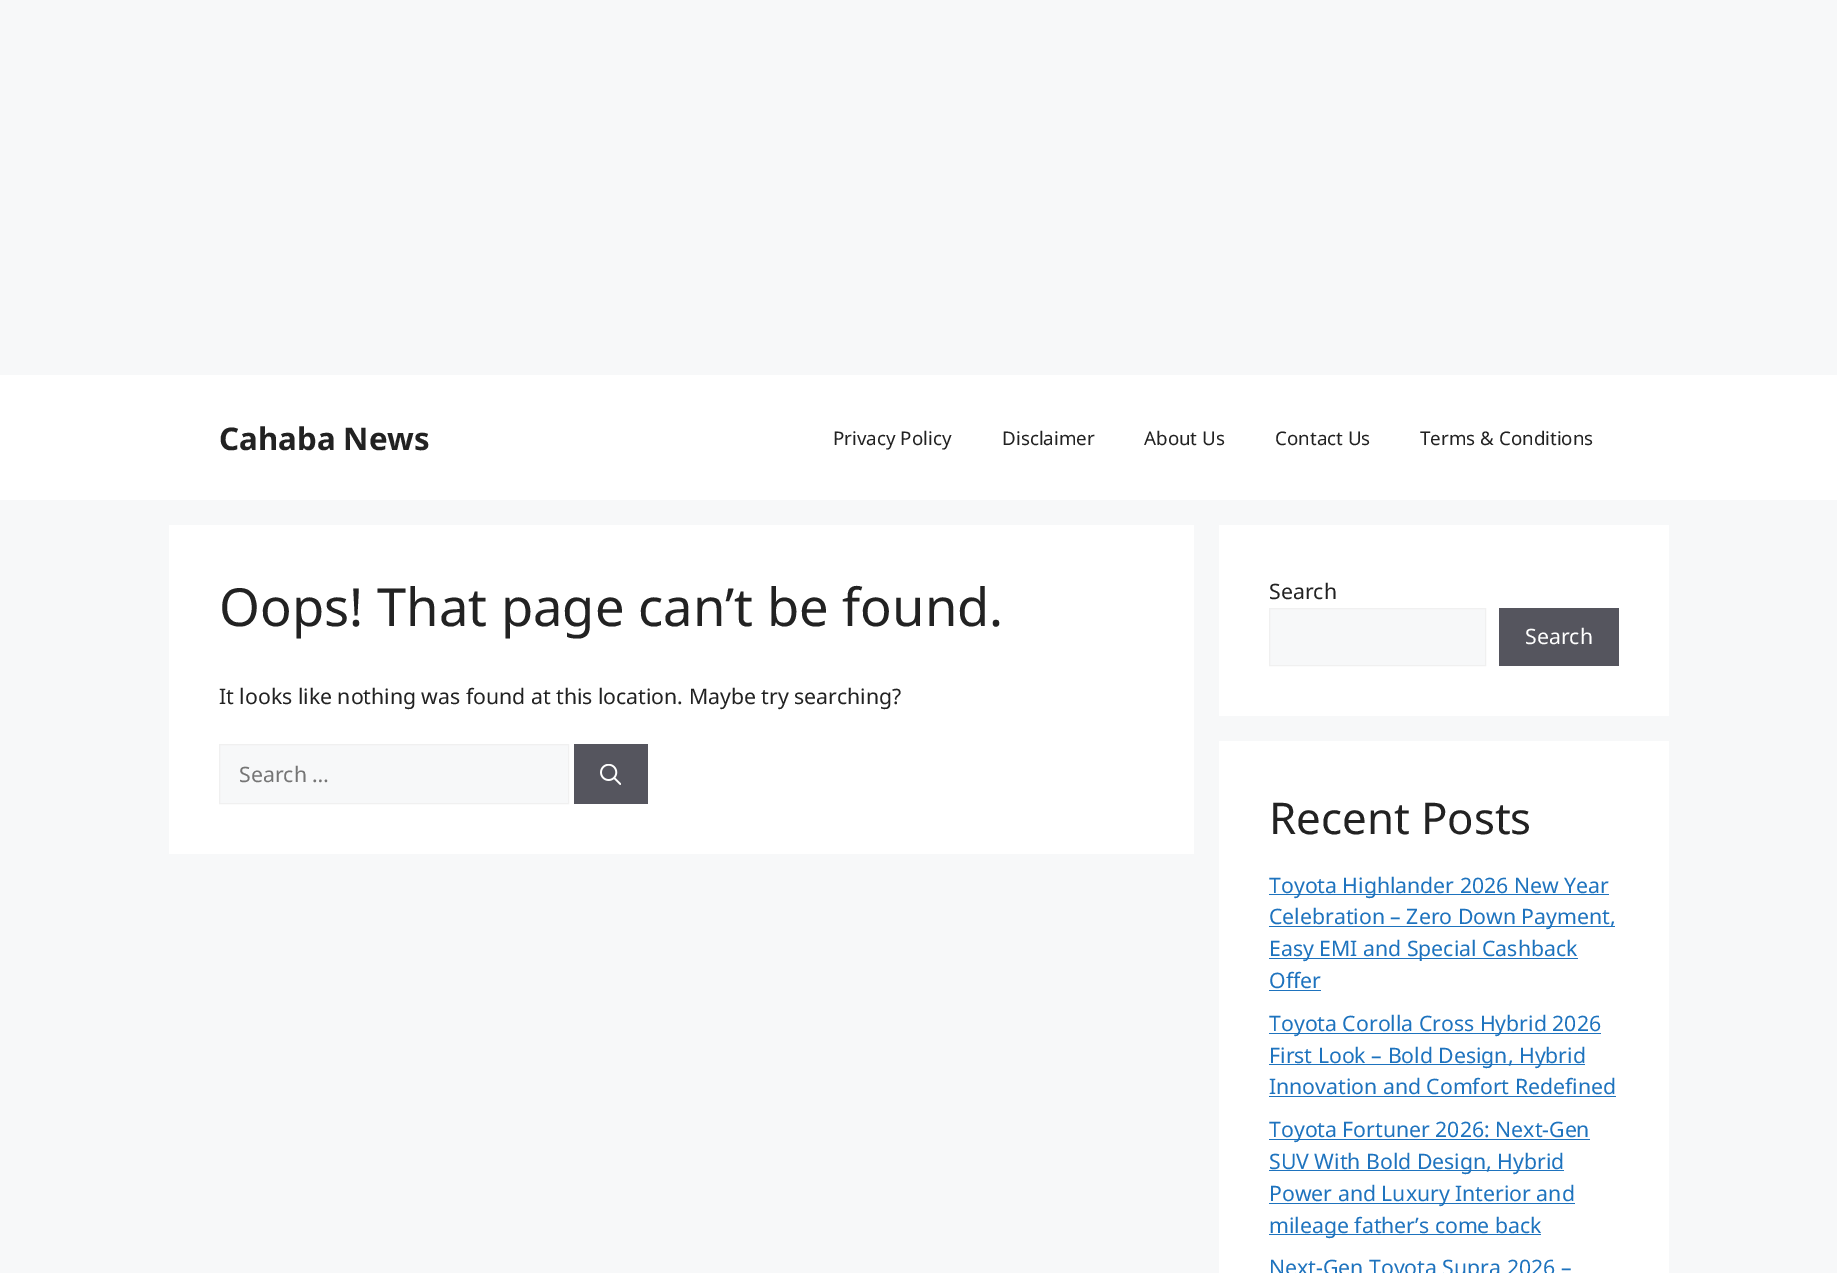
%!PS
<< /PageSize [1837 1273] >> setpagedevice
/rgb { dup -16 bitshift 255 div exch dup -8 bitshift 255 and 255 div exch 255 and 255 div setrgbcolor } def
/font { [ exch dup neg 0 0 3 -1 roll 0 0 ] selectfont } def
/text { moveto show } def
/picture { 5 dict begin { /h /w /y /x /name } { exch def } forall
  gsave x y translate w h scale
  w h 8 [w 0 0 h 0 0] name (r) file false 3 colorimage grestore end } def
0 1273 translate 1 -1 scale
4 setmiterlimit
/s1 { /NotoSans-Bold 31.25 font 16#222222 rgb } def
/s2 { /NotoSans-Regular 18.75 font 16#222222 rgb } def
/s3 { /NotoSans-Regular 52.5 font 16#222222 rgb } def
/s4 { /NotoSans-Regular 21.25 font 16#222222 rgb } def
/s5 { /NotoSans-Regular 21.25 font 16#757575 rgb } def
/s6 { /NotoSans-Regular 21.25 font 16#FFFFFF rgb } def
/s7 { /NotoSans-Regular 43.75 font 16#222222 rgb } def
/s8 { /NotoSans-Regular 21.25 font 16#1E73BE rgb } def
16#F7F8F9 rgb
0 0 1837 1273 rectfill
16#FFFFFF rgb
0 375 1837 125 rectfill
s1
(Cahaba News) 219 450 text
s2
(Privacy Policy) 833 445 text
(Disclaimer) 1002 445 text
(About Us) 1144 445 text
(Contact Us) 1275 445 text
(Terms & Conditions) 1420 445 text
16#FFFFFF rgb
169 525 1025 329 rectfill
s3
(Oops! That page can’t be found.) 219 626 text
s4
(It looks like nothing was found at this location. Maybe try searching?) 219 704 text
16#F7F8F9 rgb
219.5 744.5 moveto 568.5 744.5 lineto 568.5 803.5 lineto 219.5 803.5 lineto closepath gsave fill grestore
16#F0F0F0 rgb
stroke
s5
(Search …) 239 782 text
16#55555E rgb
574 744 74 60 rectfill
(pic1.raw) 600 764 21 21 picture
16#FFFFFF rgb
1219 525 450 191 rectfill
s4
(Search) 1269 599 text
16#F7F8F9 rgb
1269.5 608.5 moveto 1485.5 608.5 lineto 1485.5 665.5 lineto 1269.5 665.5 lineto closepath gsave fill grestore
16#F0F0F0 rgb
stroke
16#55555E rgb
1499 608 120 58 rectfill
s6
(Search) 1525 644 text
1219 741 450 532 rectfill
s7
(Recent Posts) 1269 834 text
16#1E73BE rgb
1269 894 340 1 rectfill
s8
(Toyota Highlander 2026 New Year) 1269 893 text
1269 926 346 1 rectfill
(Celebration – Zero Down Payment,) 1269 924 text
1269 958 309 1 rectfill
(Easy EMI and Special Cashback) 1269 956 text
(Offer) 1269 988 text
1269 990 52 1 rectfill
1269 1033 332 1 rectfill
(Toyota Corolla Cross Hybrid 2026) 1269 1031 text
1269 1064 316 1 rectfill
(First Look – Bold Design, Hybrid) 1269 1063 text
(Innovation and Comfort Redefined) 1269 1094 text
1269 1096 347 1 rectfill
1269 1139 321 1 rectfill
(Toyota Fortuner 2026: Next-Gen) 1269 1137 text
1269 1170 295 1 rectfill
(SUV With Bold Design, Hybrid) 1269 1169 text
1269 1203 306 1 rectfill
(Power and Luxury Interior and) 1269 1201 text
1269 1234 272 1 rectfill
(mileage father’s come back) 1269 1233 text
(Next-Gen Toyota Supra 2026 –) 1269 1275 text
showpage
